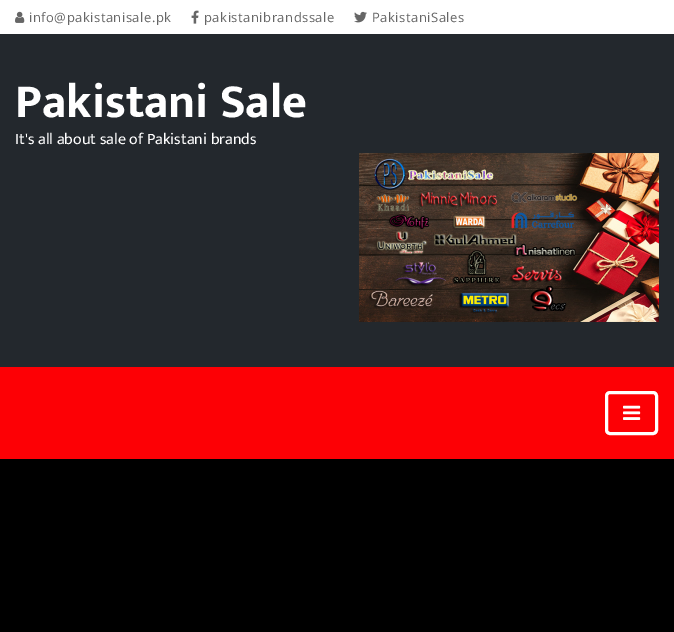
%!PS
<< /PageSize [674 632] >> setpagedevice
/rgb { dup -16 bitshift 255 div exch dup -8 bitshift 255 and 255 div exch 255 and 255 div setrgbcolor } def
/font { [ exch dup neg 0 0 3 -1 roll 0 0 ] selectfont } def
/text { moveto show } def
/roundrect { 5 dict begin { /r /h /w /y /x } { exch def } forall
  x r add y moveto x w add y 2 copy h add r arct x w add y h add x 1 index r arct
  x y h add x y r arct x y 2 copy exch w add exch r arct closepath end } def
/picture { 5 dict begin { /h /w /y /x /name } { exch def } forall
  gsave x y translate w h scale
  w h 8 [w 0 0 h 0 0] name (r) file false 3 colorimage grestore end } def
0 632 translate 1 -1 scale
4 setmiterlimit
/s1 { /Mukta-Bold 48 font 16#FFFFFF rgb } def
/s2 { /Mukta-Regular 16 font 16#FFFFFF rgb } def
16#FFFFFF rgb
0 0 674 632 rectfill
(pic1.raw) 15 11 10 12 picture
/OpenSans-Regular 13 font
16#666666 rgb
29 22 moveto 0.5 0 (info@pakistanisale.pk) ashow
(pic2.raw) 191 10 8 14 picture
204 22 moveto 0.5 0 (pakistanibrandssale) ashow
(pic3.raw) 354 11 13 12 picture
372 22 moveto 0.5 0 (PakistaniSales) ashow
16#23282D rgb
0 34 674 333 rectfill
s1
(Pakistani Sale) 15 117 text
s2
(It's all about sale of Pakistani brands) 15 144 text
(pic4.raw) 359 153 300 169 picture
16#FD0005 rgb
0 367 674 92 rectfill
16#FFFFFF rgb
3 setlinewidth
606.5 392.5 50 41 3.5 roundrect stroke
(pic5.raw) 623 405 18 15 picture
16#000000 rgb
0 459 674 173 rectfill
showpage
